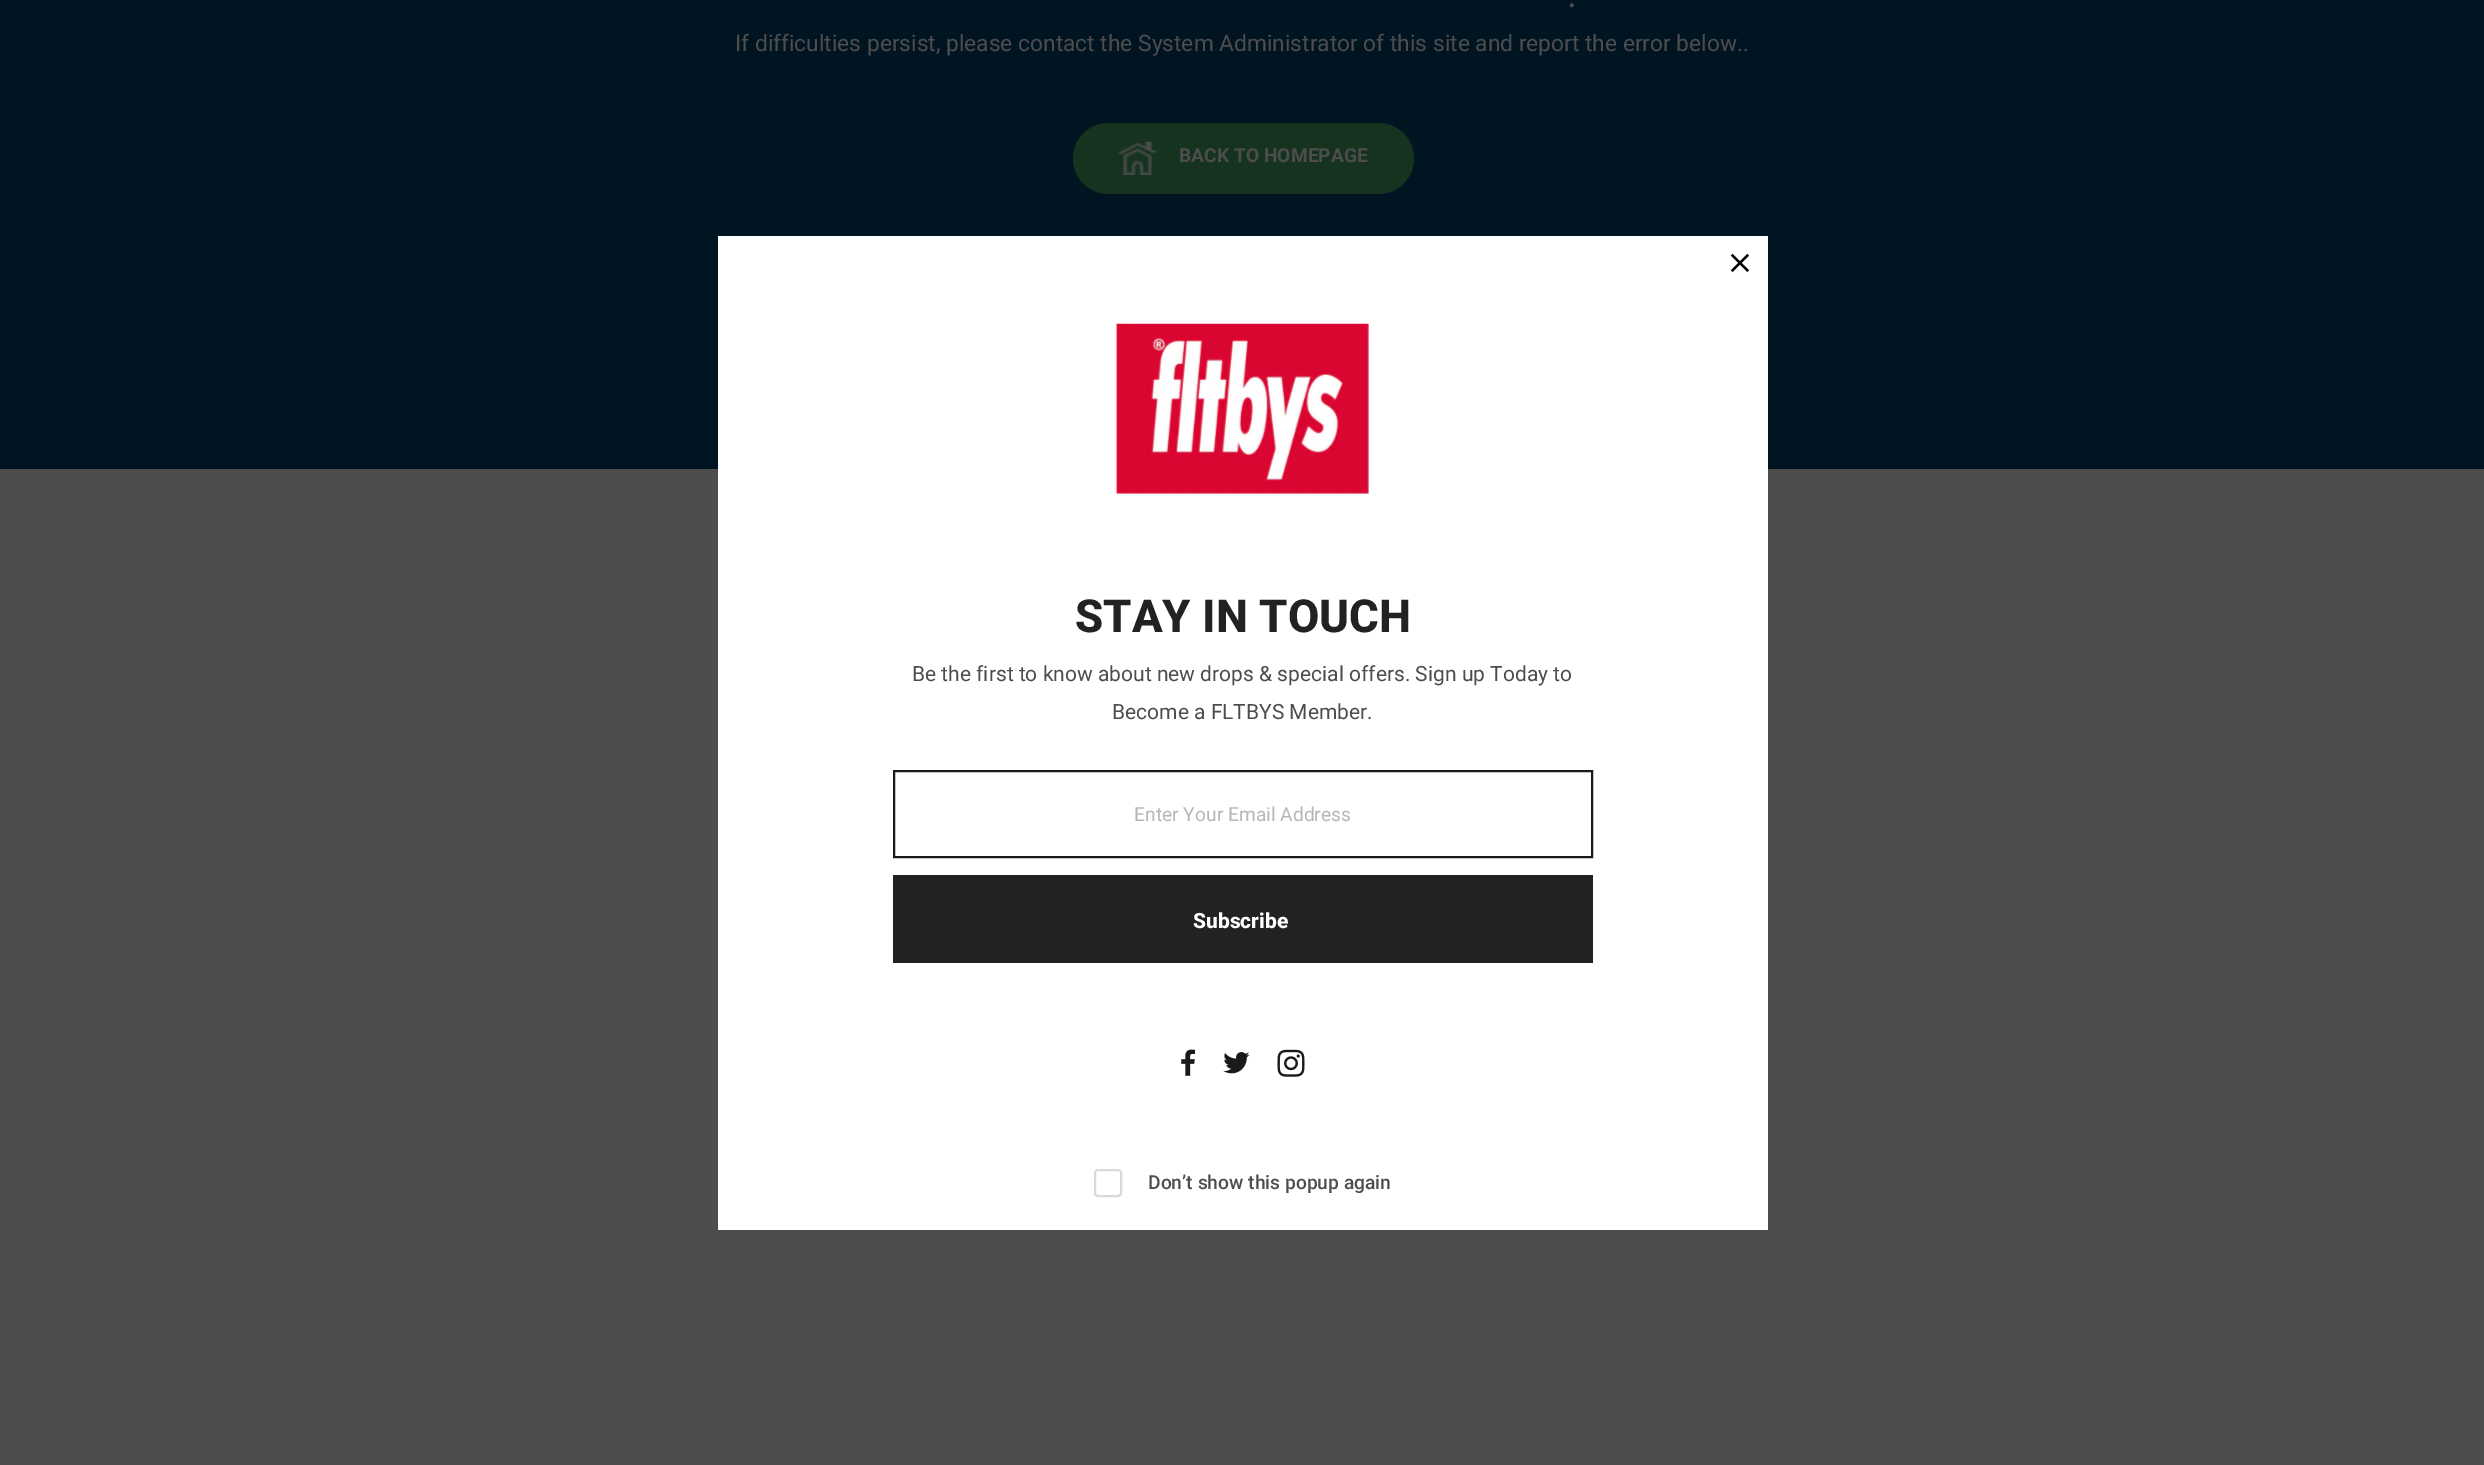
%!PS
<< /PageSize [2484 1465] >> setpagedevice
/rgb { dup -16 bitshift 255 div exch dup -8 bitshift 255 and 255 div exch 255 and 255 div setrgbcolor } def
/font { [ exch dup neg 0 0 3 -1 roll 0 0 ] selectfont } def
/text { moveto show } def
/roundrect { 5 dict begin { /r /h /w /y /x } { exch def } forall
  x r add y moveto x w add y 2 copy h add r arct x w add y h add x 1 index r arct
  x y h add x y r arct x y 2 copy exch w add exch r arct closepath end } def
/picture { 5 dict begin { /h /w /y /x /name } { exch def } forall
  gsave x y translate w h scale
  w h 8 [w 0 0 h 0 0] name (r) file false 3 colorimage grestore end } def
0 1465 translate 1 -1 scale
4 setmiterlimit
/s1 { /Roboto-SemiBold 28 font 16#4D4D4D rgb } def
/s2 { /Roboto-Regular 22.75 font 16#4D4D4D rgb } def
/s3 { /Roboto-Bold 19.25 font 16#4D4D4D rgb } def
/s4 { /Roboto-ExtraBold 45.5 font 16#222222 rgb } def
/s5 { /Roboto-Regular 21 font 16#4D4D4D rgb } def
/s6 { /Roboto-Regular 19.25 font 16#B7B7B7 rgb } def
/s7 { /Roboto-ExtraBold 21 font 16#FFFFFF rgb } def
/s8 { /Roboto-Medium 19.25 font 16#4D4D4D rgb } def
16#4D4D4D rgb
0 0 2484 1465 rectfill
16#001421 rgb
0 0 2484 469 rectfill
s1
(.) 1568 7 text
s2
(If difficulties persist, please contact the System Administrator of this site and report the error below..) 735 51 text
16#15331F rgb
1073 123 341 71 35.5 roundrect fill
(pic1.raw) 1118 141 39 34 picture
s3
(BACK TO HOMEPAGE) 1179 162 text
16#FFFFFF rgb
718 236 1050 994 rectfill
(pic2.raw) 1730 253 19 19 picture
(pic3.raw) 1115 323 254 171 picture
s4
(STAY IN TOUCH) 1075 632 text
s5
(Be the first to know about new drops & special offers. Sign up Today to) 912 681 text
(Become a FLTBYS Member.) 1112 719 text
16#1A1A1A rgb
2 setlinewidth
894 771 698 86 rectstroke
s6
(Enter Your Email Address) 1134 821 text
16#222222 rgb
893 875 700 88 rectfill
s7
(Subscribe) 1193 928 text
(pic4.raw) 1181 1049 15 27 picture
(pic5.raw) 1223 1052 27 22 picture
(pic6.raw) 1277 1049 28 28 picture
16#D9D9D9 rgb
1095 1170 26 26 3 roundrect stroke
s8
(Don’t show this popup again) 1148 1189 text
showpage
